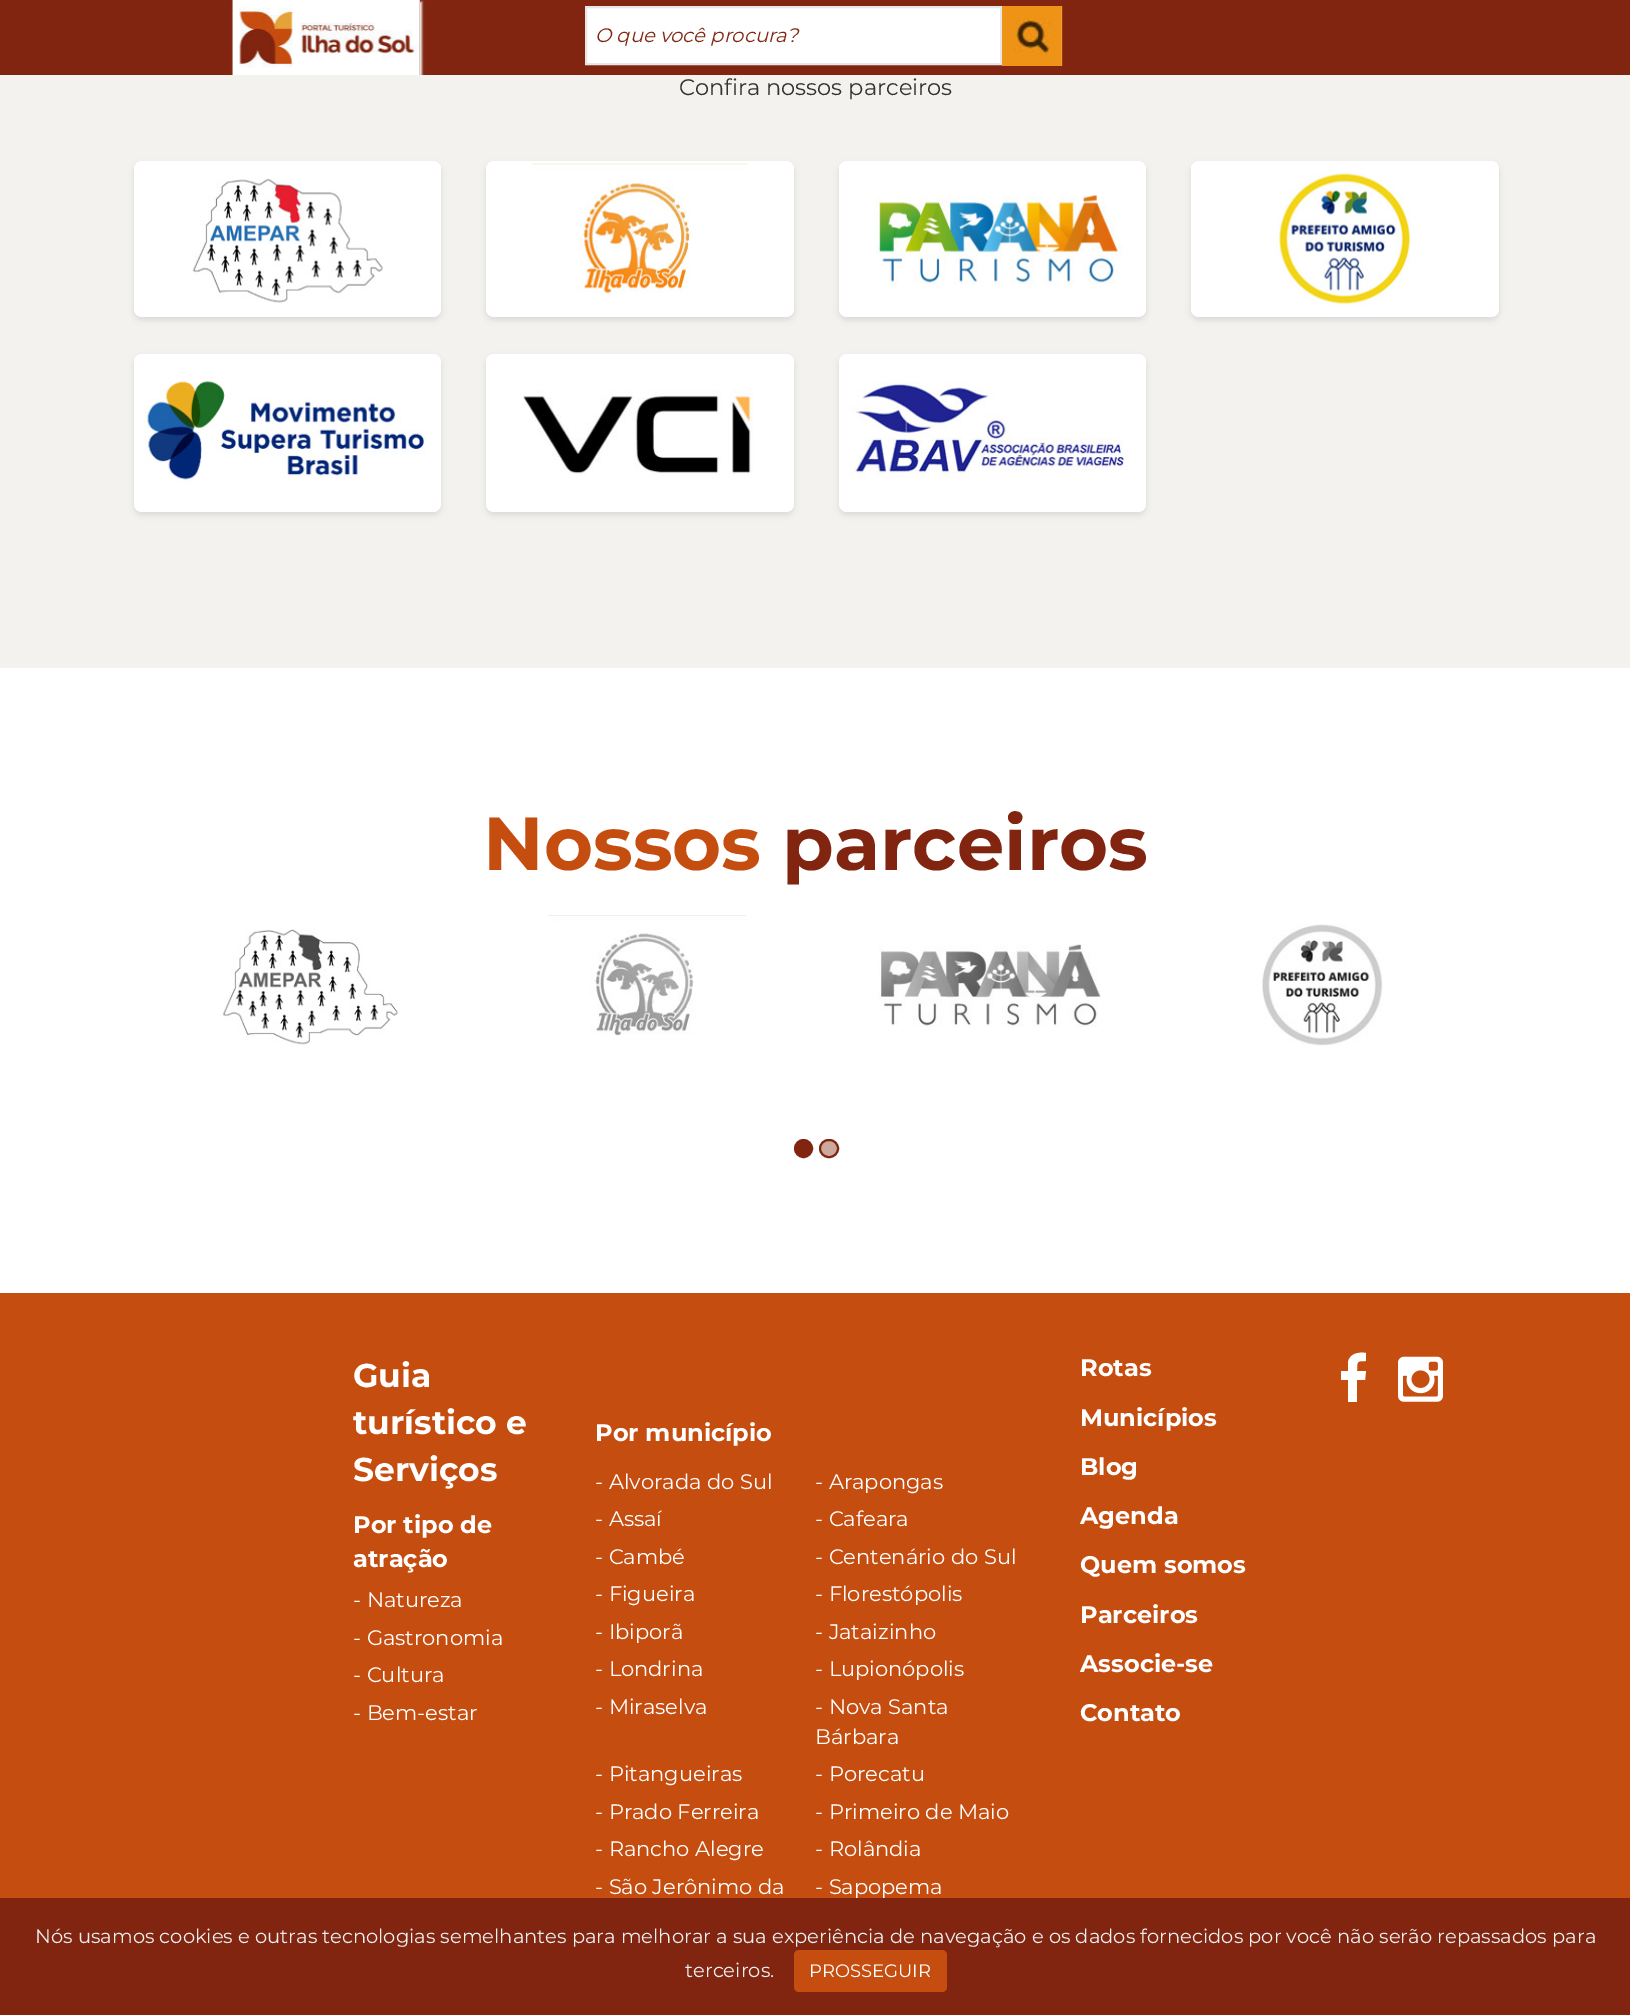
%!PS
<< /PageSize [1630 2015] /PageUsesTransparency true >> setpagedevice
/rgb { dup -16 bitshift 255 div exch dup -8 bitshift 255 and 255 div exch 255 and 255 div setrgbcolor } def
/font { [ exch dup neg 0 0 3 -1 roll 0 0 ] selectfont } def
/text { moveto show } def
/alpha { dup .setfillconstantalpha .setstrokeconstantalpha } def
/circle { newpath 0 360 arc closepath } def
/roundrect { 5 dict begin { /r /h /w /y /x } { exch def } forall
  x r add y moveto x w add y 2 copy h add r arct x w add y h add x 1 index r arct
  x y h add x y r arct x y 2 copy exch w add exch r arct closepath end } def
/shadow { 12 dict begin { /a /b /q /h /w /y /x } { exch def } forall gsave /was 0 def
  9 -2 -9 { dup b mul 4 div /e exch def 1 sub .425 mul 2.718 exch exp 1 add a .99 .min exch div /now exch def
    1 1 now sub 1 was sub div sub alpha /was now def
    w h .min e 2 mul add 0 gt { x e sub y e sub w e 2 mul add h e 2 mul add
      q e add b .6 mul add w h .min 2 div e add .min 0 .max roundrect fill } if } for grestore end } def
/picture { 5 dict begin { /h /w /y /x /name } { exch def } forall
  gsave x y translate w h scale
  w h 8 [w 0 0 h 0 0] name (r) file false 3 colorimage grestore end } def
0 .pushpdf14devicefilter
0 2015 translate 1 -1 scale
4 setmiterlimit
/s1 { /Montserrat-Italic 19.5 font 16#812510 rgb } def
/s2 { /Montserrat-Regular 22.5 font 16#333333 rgb } def
/s3 { /Montserrat-Bold 75 font 16#C64D10 rgb } def
/s4 { /Montserrat-Bold 75 font 16#812510 rgb } def
/s5 { /Montserrat-Bold 33 font 16#FFFFFF rgb } def
/s6 { /Montserrat-Bold 24 font 16#FFFFFF rgb } def
/s7 { /Montserrat-Regular 21 font 16#FFFFFF rgb } def
/s8 { /Montserrat-Regular 19.5 font 16#ECF0F1 rgb } def
/s9 { /Montserrat-Regular 18 font 16#FFFFFF rgb } def
16#F3F2EE rgb
0 0 1630 2015 rectfill
16#812510 rgb
0 0 1630 75 rectfill
16#F1F1F1 rgb
234 2 188 75 0 1 1 shadow
(pic1.raw) 232 0 188 75 picture
16#FFFFFF rgb
586 7 moveto 1001 7 lineto 1001 64 lineto 586 64 lineto closepath gsave fill grestore
16#E5E6E7 rgb
2 setlinewidth
stroke
s1
(O que você procura?) 595 42 text
(pic2.raw) 1002 6 61 60 picture
s2
(Confira nossos parceiros) 679 95 text
16#000000 rgb
134 164 307 156 8 3 0.1 shadow
16#FFFFFF rgb
134 161 307 156 8 roundrect fill
(pic3.raw) 192 178 191 125 picture
16#000000 rgb
486 164 308 156 8 3 0.1 shadow
16#FFFFFF rgb
486 161 308 156 8 roundrect fill
(pic4.raw) 531 163 217 131 picture
16#000000 rgb
839 164 307 156 8 3 0.1 shadow
16#FFFFFF rgb
839 161 307 156 8 roundrect fill
(pic5.raw) 875 195 248 90 picture
16#000000 rgb
1191 164 308 156 8 3 0.1 shadow
16#FFFFFF rgb
1191 161 308 156 8 roundrect fill
(pic6.raw) 1276 173 135 133 picture
16#000000 rgb
134 357 307 158 8 3 0.1 shadow
16#FFFFFF rgb
134 354 307 158 8 roundrect fill
(pic7.raw) 145 381 281 103 picture
16#000000 rgb
486 357 308 158 8 3 0.1 shadow
16#FFFFFF rgb
486 354 308 158 8 roundrect fill
(pic8.raw) 523 389 231 87 picture
16#000000 rgb
839 357 307 158 8 3 0.1 shadow
16#FFFFFF rgb
839 354 307 158 8 roundrect fill
(pic9.raw) 850 381 279 97 picture
0 668 1630 625 rectfill
s3
(Nossos) 483 870 text
s4
(parceiros) 782 870 text
(pic10.raw) 222 929 176 116 picture
(pic11.raw) 548 915 199 121 picture
(pic12.raw) 878 944 223 83 picture
(pic13.raw) 1262 924 121 122 picture
803.5 1148.5 8.5 circle gsave fill grestore
stroke
16#CDA89F rgb
820 1140 18 17 8.5 roundrect gsave fill grestore
16#812510 rgb
stroke
16#C64D10 rgb
0 1293 1630 605 rectfill
s5
(Guia) 353 1387 text
(turístico e) 353 1434 text
(Serviços) 353 1481 text
s6
(Por tipo de) 353 1533 text
(atração) 353 1567 text
s7
(- Natureza) 353 1607 text
(- Gastronomia) 353 1645 text
(- Cultura) 353 1682 text
(- Bem-estar) 353 1720 text
s6
(Por município) 595 1441 text
s7
(- Alvorada do Sul) 595 1489 text
(- Arapongas) 815 1489 text
(- Assaí) 595 1526 text
(- Cafeara) 815 1526 text
(- Cambé) 595 1564 text
(- Centenário do Sul) 815 1564 text
(- Figueira) 595 1601 text
(- Florestópolis) 815 1601 text
(- Ibiporã) 595 1639 text
(- Jataizinho) 815 1639 text
(- Londrina) 595 1676 text
(- Lupionópolis) 815 1676 text
(- Miraselva) 595 1714 text
(- Nova Santa) 815 1714 text
(Bárbara) 815 1744 text
(- Pitangueiras) 595 1781 text
(- Porecatu) 815 1781 text
(- Prado Ferreira) 595 1819 text
(- Primeiro de Maio) 815 1819 text
(- Rancho Alegre) 595 1856 text
(- Rolândia) 815 1856 text
(- São Jerônimo da) 595 1894 text
(- Sapopema) 815 1894 text
s6
(Rotas) 1080 1376 text
(Municípios) 1080 1426 text
(Blog) 1080 1475 text
(Agenda) 1080 1524 text
(Quem somos) 1080 1573 text
(Parceiros) 1080 1623 text
(Associe-se) 1080 1672 text
(Contato) 1080 1721 text
1366 1353 moveto 1366 1361 lineto 1357 1361 1357 1361 1357 1371 curveto 1366 1371 lineto 1365 1380 lineto 1357 1380 lineto 1357 1402 lineto 1348 1402 lineto 1348 1380 lineto 1341 1380 lineto 1341 1371 lineto 1348 1371 lineto 1348 1362 lineto 1350 1353 1359 1352 1366 1353 curveto closepath fill
(pic14.raw) 1398 1356 45 46 picture
16#812510 rgb
0 1898 1630 117 rectfill
s8
(Nós usamos cookies e outras tecnologias semelhantes para melhorar a sua experiência de navegação e os dados fornecidos por você não serão repassados para) 35 1943 text
(terceiros.) 685 1977 text
16#C64D10 rgb
794 1950 153 42 5 roundrect fill
s9
(PROSSEGUIR) 809 1977 text
.poppdf14devicefilter showpage
